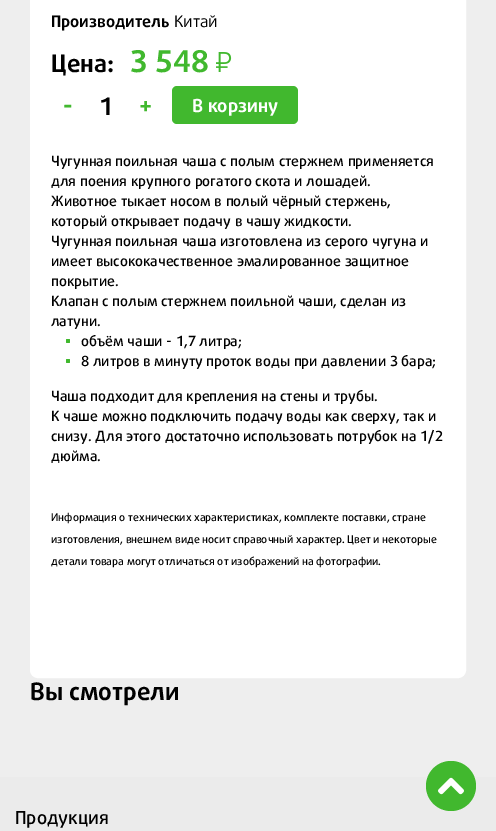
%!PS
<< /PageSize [496 831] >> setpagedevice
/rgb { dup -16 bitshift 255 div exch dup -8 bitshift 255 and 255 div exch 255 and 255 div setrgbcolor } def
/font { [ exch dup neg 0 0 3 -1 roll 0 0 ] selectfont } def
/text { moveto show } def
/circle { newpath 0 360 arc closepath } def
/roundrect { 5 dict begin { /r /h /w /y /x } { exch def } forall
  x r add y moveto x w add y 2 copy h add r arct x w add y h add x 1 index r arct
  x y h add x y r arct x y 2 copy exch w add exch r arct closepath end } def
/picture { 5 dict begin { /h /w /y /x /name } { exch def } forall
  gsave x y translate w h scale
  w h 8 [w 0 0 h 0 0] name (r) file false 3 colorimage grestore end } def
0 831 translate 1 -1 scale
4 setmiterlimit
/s1 { /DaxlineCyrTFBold-Bold 16 font 16#000000 rgb } def
/s2 { /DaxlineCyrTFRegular-Regular 16 font 16#000000 rgb } def
/s3 { /DaxlineCyrTFBold-Bold 24 font 16#000000 rgb } def
/s4 { /DaxlineCyrTFBold-Bold 30 font 16#41B82E rgb } def
/s5 { /DaxlineCyrTFBold-Bold 24 font 16#41B82E rgb } def
/s6 { /DaxlineCyrTFBold-Bold 18 font 16#FFFFFF rgb } def
/s7 { /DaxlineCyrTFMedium-Medium 14 font 16#000000 rgb } def
/s8 { /DaxlineCyrTFMedium-Medium 10.65 font 16#000000 rgb } def
/s9 { /DaxlineCyrTFMedium-Medium 18 font 16#000000 rgb } def
16#EEEEEE rgb
0 0 496 831 rectfill
16#FFFFFF rgb
30.5 -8.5 435 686 7.5 roundrect gsave fill grestore
stroke
s1
(Производитель) 51 27 text
s2
(Китай) 174 27 text
s3
(Цена:) 51 72 text
s4
(3 548) 130 72 text
(pic1.raw) 216 52 16 20 picture
s5
(-) 63 114 text
s3
(1) 99 115 text
s5
(+) 139 114 text
172 86 126 38 5 roundrect fill
s6
(В корзину) 192 112 text
s7
(Чугунная поильная чаша с полым стержнем применяется) 51 166 text
(для поения крупного рогатого скота и лошадей.) 51 186 text
(Животное тыкает носом в полый чёрный стержень,) 51 206 text
(который открывает подачу в чашу жидкости.) 51 226 text
(Чугунная поильная чаша изготовлена из серого чугуна и) 51 246 text
(имеет высококачественное эмалированное защитное) 51 266 text
(покрытие.) 51 286 text
(Клапан с полым стержнем поильной чаши, сделан из) 51 306 text
(латуни.) 51 326 text
16#41B82E rgb
66 339 4 4 1 roundrect fill
s7
(объём чаши - 1,7 литра;) 81 346 text
16#41B82E rgb
66 359 4 4 1 roundrect fill
s7
(8 литров в минуту проток воды при давлении 3 бара;) 81 366 text
(Чаша подходит для крепления на стены и трубы.) 51 401 text
(К чаше можно подключить подачу воды как сверху, так и) 51 421 text
(снизу. Для этого достаточно использовать потрубок на 1/2) 51 441 text
(дюйма.) 51 461 text
s8
(Информация о технических характеристиках, комплекте поставки, стране) 51 521 text
(изготовления, внешнем виде носит справочный характер. Цвет и некоторые) 51 543 text
(детали товара могут отличаться от изображений на фотографии.) 51 565 text
s3
(Вы смотрели) 30 700 text
16#EBEBEB rgb
0 777 496 54 rectfill
16#41B82E rgb
451 786 25 circle fill
(pic2.raw) 438 777 26 18 picture
s9
(Продукция) 15 824 text
showpage
